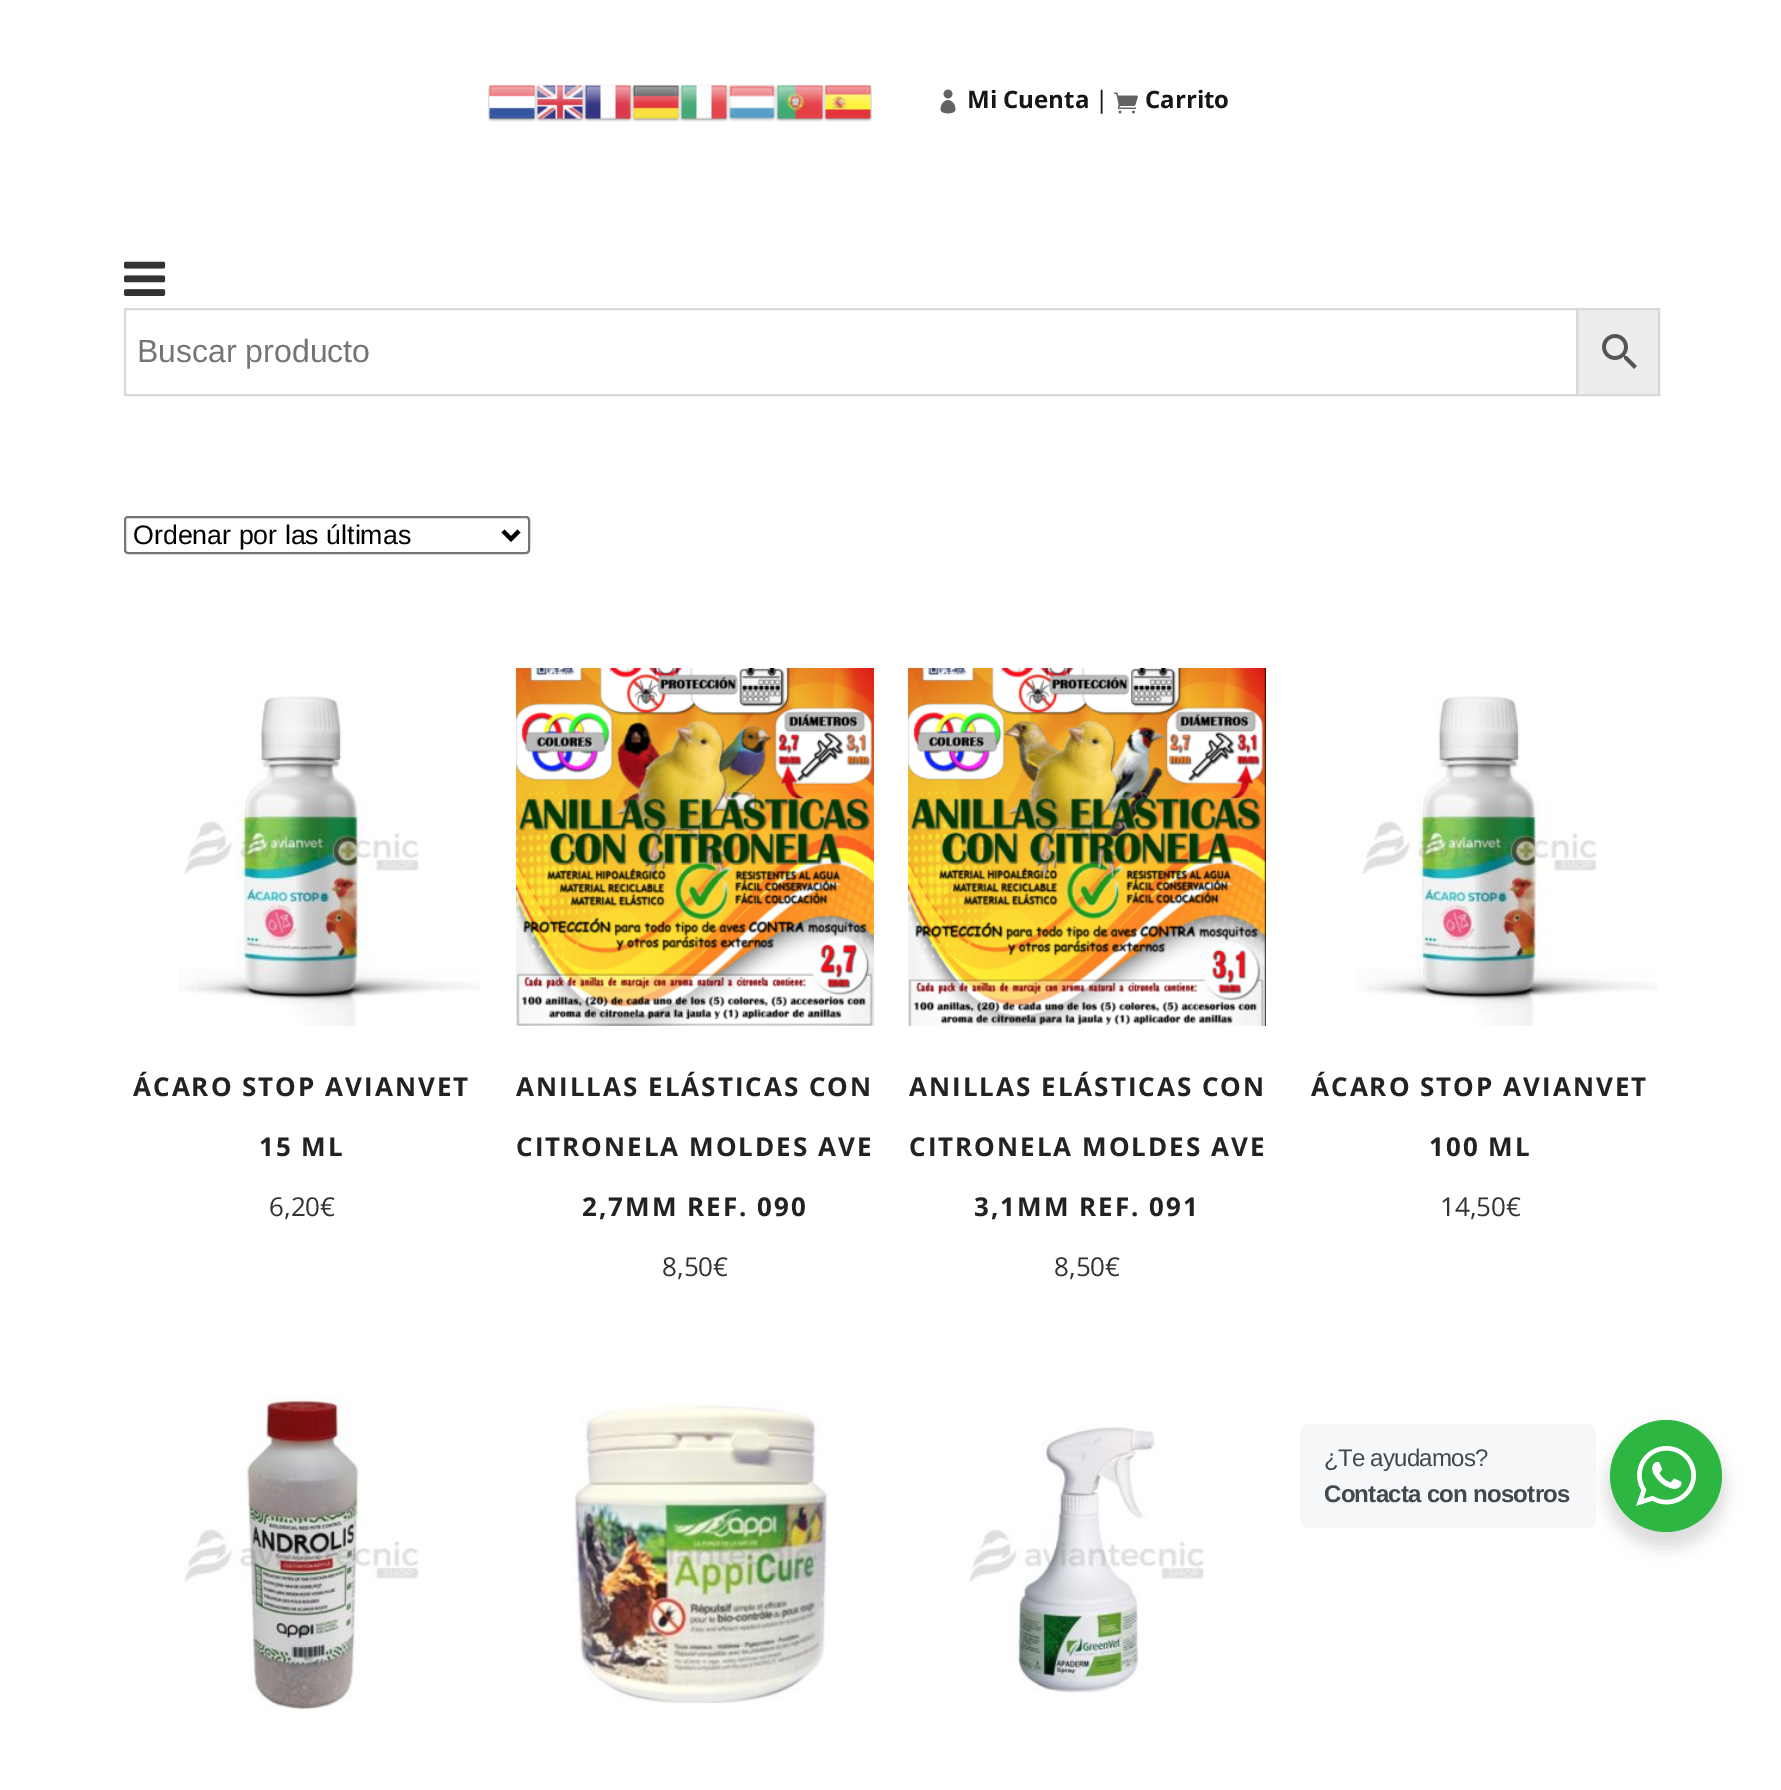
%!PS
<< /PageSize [1781 1790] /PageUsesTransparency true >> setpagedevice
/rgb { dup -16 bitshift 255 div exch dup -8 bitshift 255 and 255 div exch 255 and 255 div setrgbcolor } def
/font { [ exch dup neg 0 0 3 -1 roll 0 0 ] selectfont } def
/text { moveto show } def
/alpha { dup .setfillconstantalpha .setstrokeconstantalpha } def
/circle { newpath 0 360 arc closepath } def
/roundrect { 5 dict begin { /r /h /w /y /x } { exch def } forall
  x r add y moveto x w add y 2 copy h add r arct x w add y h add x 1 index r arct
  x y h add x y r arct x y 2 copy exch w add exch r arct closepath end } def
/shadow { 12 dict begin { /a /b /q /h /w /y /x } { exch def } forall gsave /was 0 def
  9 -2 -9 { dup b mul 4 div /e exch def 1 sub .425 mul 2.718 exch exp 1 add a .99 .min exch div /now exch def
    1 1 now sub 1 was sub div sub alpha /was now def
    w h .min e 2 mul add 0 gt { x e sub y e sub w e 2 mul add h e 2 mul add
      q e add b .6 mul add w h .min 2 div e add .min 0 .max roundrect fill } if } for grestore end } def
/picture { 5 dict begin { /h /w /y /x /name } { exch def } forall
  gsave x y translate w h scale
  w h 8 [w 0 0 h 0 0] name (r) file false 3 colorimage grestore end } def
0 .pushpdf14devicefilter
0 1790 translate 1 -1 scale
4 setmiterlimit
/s1 { /OpenSans-Bold 24 font 16#161616 rgb } def
/s2 { /OpenSans-Medium 24 font 16#161616 rgb } def
/s3 { /LiberationSans-Regular 32 font 16#757575 rgb } def
/s4 { /LiberationSans-Regular 26.75 font 16#000000 rgb } def
/s5 { /OpenSans-Regular 26 font 16#333333 rgb } def
16#FFFFFF rgb
0 0 1781 1790 rectfill
(pic1.raw) 488 84 48 38 picture
(pic2.raw) 536 84 48 38 picture
(pic3.raw) 584 84 48 38 picture
(pic4.raw) 632 84 48 38 picture
(pic5.raw) 680 84 48 38 picture
(pic6.raw) 728 84 48 38 picture
(pic7.raw) 776 84 48 38 picture
(pic8.raw) 824 84 48 38 picture
(pic9.raw) 940 89 16 25 picture
s1
(Mi Cuenta) 967 108 text
s2
(|) 1095 108 text
(pic10.raw) 1114 92 24 22 picture
s1
(Carrito) 1145 108 text
(pic11.raw) 124 261 42 35 picture
16#EDEDED rgb
1577 309 moveto 1659 309 lineto 1659 395 lineto 1577 395 lineto closepath gsave fill grestore
16#D8D8D8 rgb
2 setlinewidth
stroke
125 309 1452 86 rectstroke
s3
(Buscar producto) 137 362 text
(pic12.raw) 1602 334 35 35 picture
16#767676 rgb
125 517 404 36 3 roundrect stroke
16#000000 rgb
4 setlinewidth
503 531 moveto 511 539 lineto 519 531 lineto stroke
s4
(Ordenar por las últimas) 133 544 text
(pic13.raw) 178 696 302 330 picture
/OpenSans-Bold 26 font
16#222222 rgb
133 1096 moveto 2 0 (ÁCARO STOP AVIANVET) ashow
259 1156 moveto 2 0 (15 ML) ashow
s5
(6,20€) 269 1216 text
(pic14.raw) 516 668 358 358 picture
/OpenSans-Bold 26 font
16#222222 rgb
516 1096 moveto 2 0 (ANILLAS ELÁSTICAS CON) ashow
516 1156 moveto 2 0 (CITRONELA MOLDES AVE) ashow
582 1216 moveto 2 0 (2,7MM REF. 090) ashow
s5
(8,50€) 662 1276 text
(pic15.raw) 908 668 358 358 picture
/OpenSans-Bold 26 font
16#222222 rgb
909 1096 moveto 2 0 (ANILLAS ELÁSTICAS CON) ashow
909 1156 moveto 2 0 (CITRONELA MOLDES AVE) ashow
974 1216 moveto 2 0 (3,1MM REF. 091) ashow
s5
(8,50€) 1054 1276 text
(pic13.raw) 1356 696 302 330 picture
/OpenSans-Bold 26 font
16#222222 rgb
1311 1096 moveto 2 0 (ÁCARO STOP AVIANVET) ashow
1429 1156 moveto 2 0 (100 ML) ashow
s5
(14,50€) 1440 1216 text
(pic16.raw) 184 1395 235 315 picture
(pic17.raw) 573 1399 257 305 picture
(pic18.raw) 969 1425 235 268 picture
16#000000 rgb
1606 1428 120 120 60 8 0.14 shadow
16#F5F7F9 rgb
1300 1424 296 104 8 roundrect fill
/LiberationSans-Regular 24 font
16#43474E rgb
1324 1466 moveto -0.75 0 (¿Te ayudamos?) ashow
/LiberationSans-Bold 24 font
1324 1502 moveto -0.75 0 (Contacta con nosotros) ashow
16#2DB742 rgb
1666 1476 56 circle fill
(pic19.raw) 1636 1446 60 60 picture
.poppdf14devicefilter showpage
